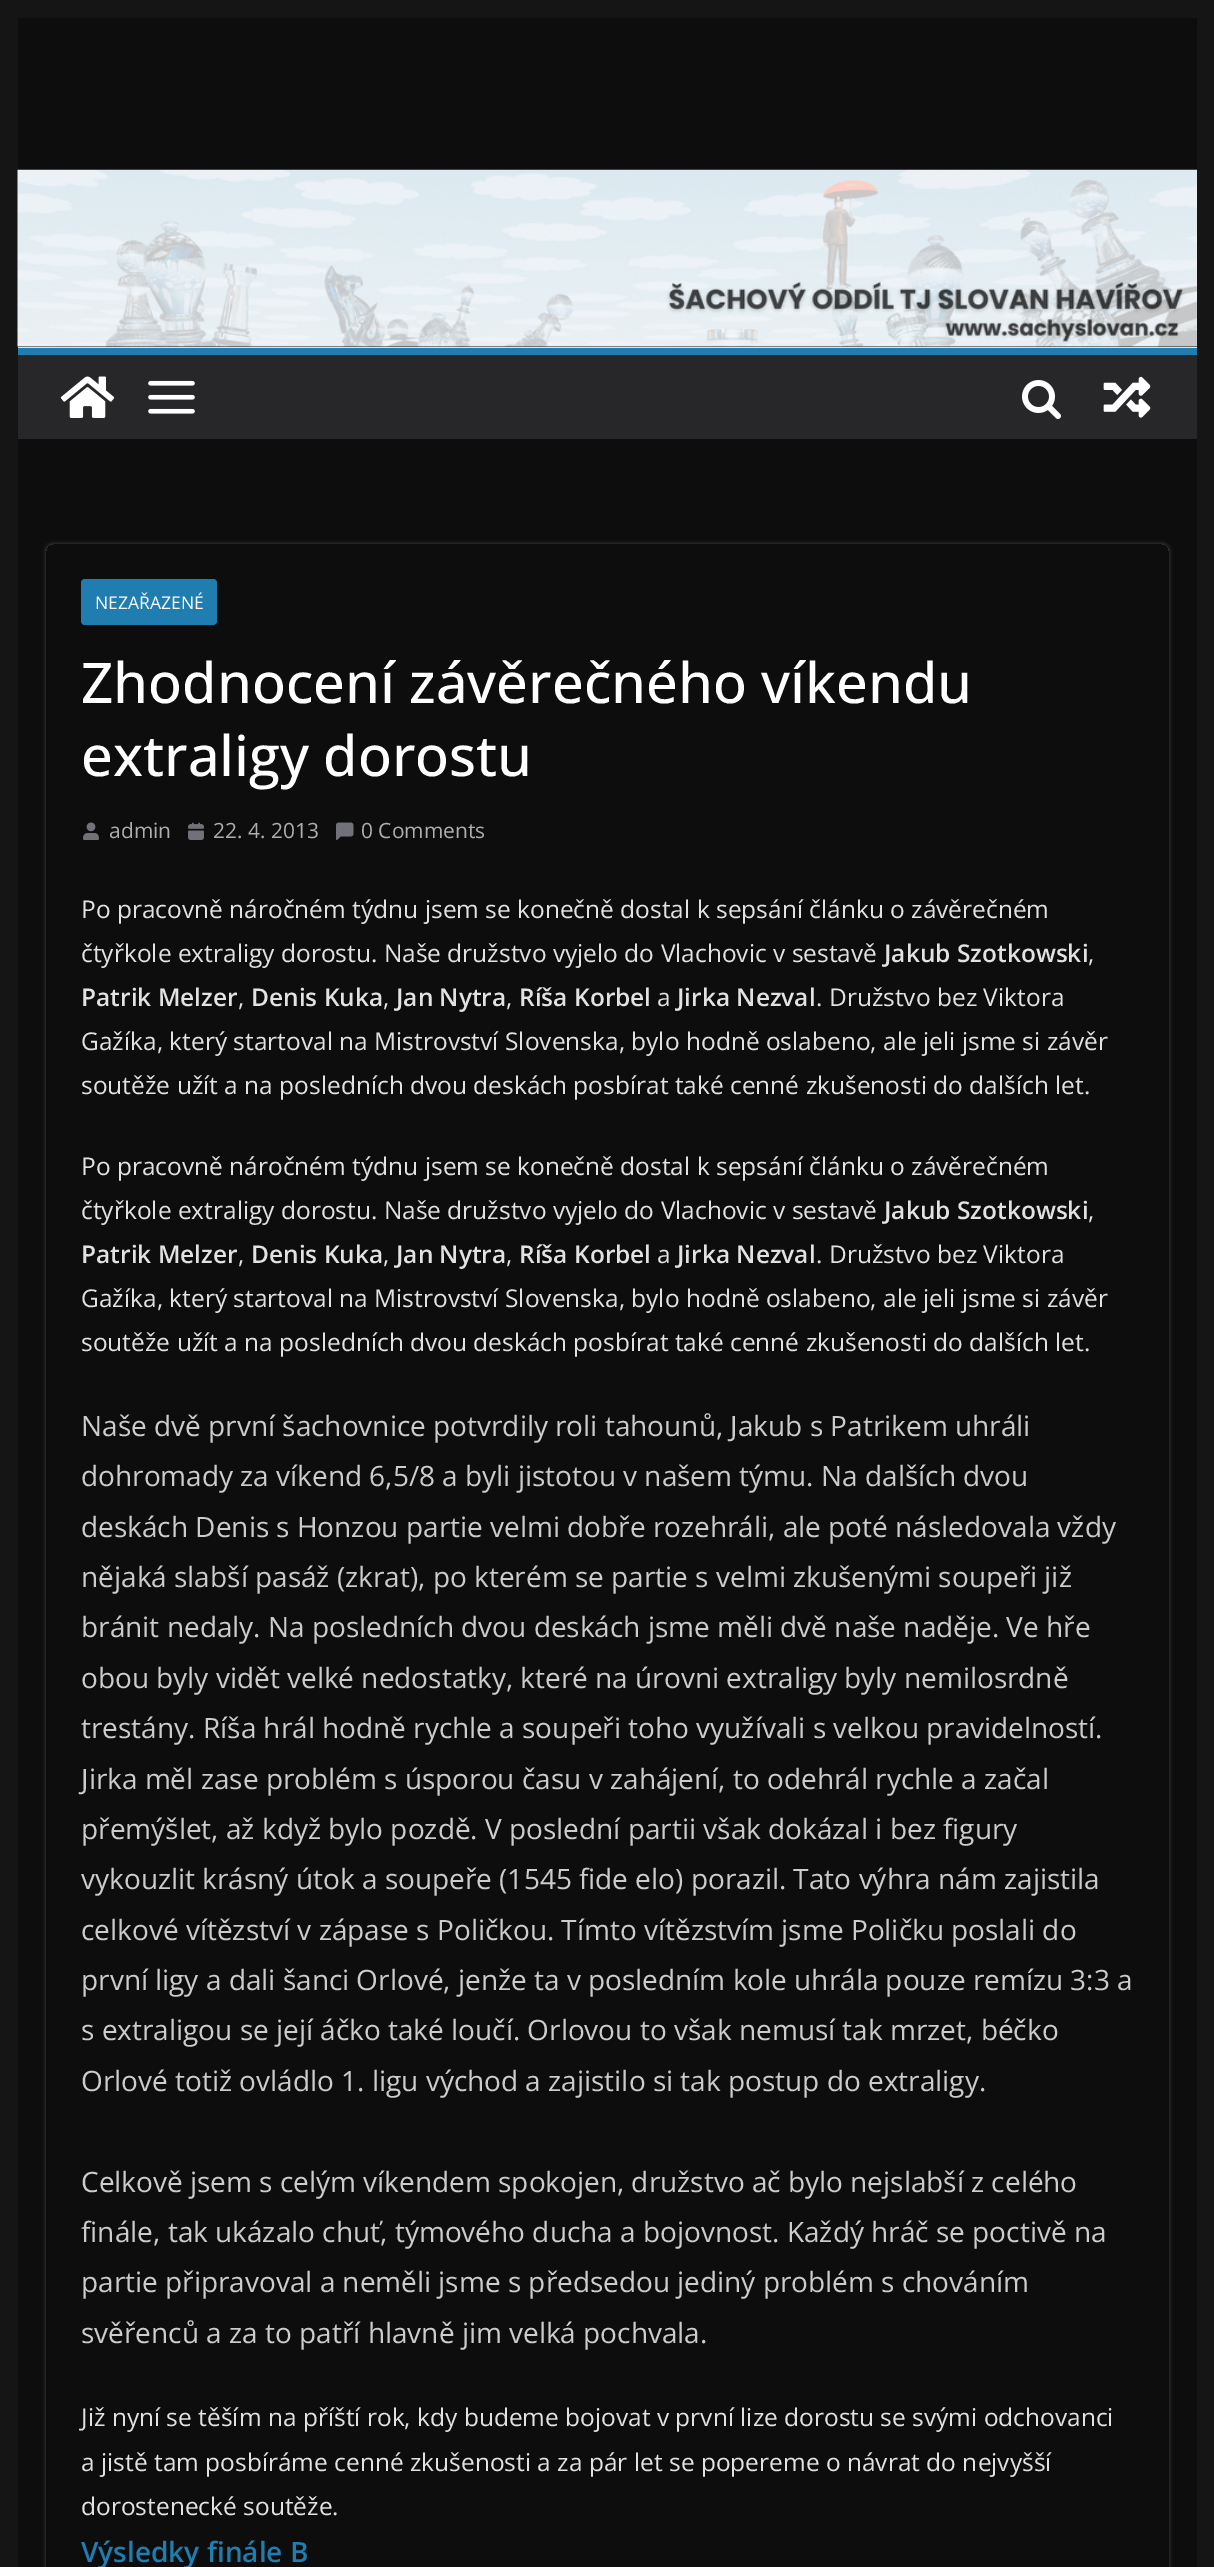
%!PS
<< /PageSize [1214 2567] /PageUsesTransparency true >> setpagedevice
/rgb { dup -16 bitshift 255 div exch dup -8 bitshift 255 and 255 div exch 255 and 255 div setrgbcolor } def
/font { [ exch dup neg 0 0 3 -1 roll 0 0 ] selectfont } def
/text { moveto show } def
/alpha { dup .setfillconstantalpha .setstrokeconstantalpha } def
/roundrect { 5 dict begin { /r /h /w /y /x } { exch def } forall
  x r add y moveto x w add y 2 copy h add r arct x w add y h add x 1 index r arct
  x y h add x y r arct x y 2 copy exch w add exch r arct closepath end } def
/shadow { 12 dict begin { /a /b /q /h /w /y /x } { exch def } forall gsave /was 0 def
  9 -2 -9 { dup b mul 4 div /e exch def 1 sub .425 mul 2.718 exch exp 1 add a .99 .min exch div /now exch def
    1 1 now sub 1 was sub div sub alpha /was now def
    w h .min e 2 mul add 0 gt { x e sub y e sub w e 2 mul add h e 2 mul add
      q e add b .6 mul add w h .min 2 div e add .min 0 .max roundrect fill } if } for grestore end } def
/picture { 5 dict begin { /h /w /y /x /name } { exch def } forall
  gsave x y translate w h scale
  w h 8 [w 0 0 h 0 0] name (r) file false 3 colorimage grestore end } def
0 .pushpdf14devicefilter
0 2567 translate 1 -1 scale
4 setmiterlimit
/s1 { /OpenSans-Regular 17.5 font 16#FFFFFF rgb } def
/s2 { /OpenSans-Medium 56 font 16#FFFFFF rgb } def
/s3 { /OpenSans-Regular 21 font 16#AEAEAE rgb } def
/s4 { /OpenSans-Regular 24.5 font 16#E3E2E2 rgb } def
/s5 { /OpenSans-SemiBold 24.5 font 16#E3E2E2 rgb } def
/s6 { /OpenSans-Regular 28 font 16#CCCCCC rgb } def
/s7 { /OpenSans-SemiBold 28 font 16#207DAF rgb } def
16#151515 rgb
0 0 1214 2567 rectfill
16#0D0D0D rgb
18 439 1179 2128 rectfill
18 18 1179 329 rectfill
(pic1.raw) 17 169 1180 178 picture
16#E4E4E7 rgb
18 347 1179 1 rectfill
16#27272A rgb
18 355 1179 84 rectfill
16#207DAF rgb
18 348 1179 7 rectfill
(pic2.raw) 60 376 55 42 picture
(pic3.raw) 148 380 47 34 picture
(pic4.raw) 1022 380 39 39 picture
(pic5.raw) 1103 376 48 42 picture
gsave
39 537 moveto 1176 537 lineto 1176 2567 lineto 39 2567 lineto closepath 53 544 moveto 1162 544 lineto 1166 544 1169 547 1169 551 curveto 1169 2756 lineto 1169 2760 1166 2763 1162 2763 curveto 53 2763 lineto 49 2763 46 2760 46 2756 curveto 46 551 lineto 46 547 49 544 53 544 curveto closepath eoclip newpath
16#FFFFFF rgb
46 544 1123 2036 7 2 0.24 shadow
grestore
81 579 136 46 4 roundrect fill
s1
(NEZAŘAZENÉ) 95 609 text
s2
(Zhodnocení závěrečného víkendu) 81 703 text
(extraligy dorostu) 81 776 text
(pic6.raw) 83 822 16 18 picture
s3
(admin) 109 838 text
(pic7.raw) 188 822 16 18 picture
(22. 4. 2013) 213 838 text
(pic8.raw) 336 822 18 18 picture
(0 Comments) 361 838 text
s4
(Po pracovně náročném týdnu jsem se konečně dostal k sepsání článku o závěrečném) 81 918 text
(čtyřkole extraligy dorostu. Naše družstvo vyjelo do Vlachovic v sestavě) 81 962 text
s5
(Jakub Szotkowski) 884 962 text
s4
(,) 1088 962 text
s5
(Patrik Melzer) 81 1006 text
s4
(,) 238 1006 text
s5
(Denis Kuka) 251 1006 text
s4
(,) 383 1006 text
s5
(Jan Nytra) 396 1006 text
s4
(,) 506 1006 text
s5
(Ríša Korbel) 519 1006 text
s4
(a) 657 1006 text
s5
(Jirka Nezval) 677 1006 text
s4
(. Družstvo bez Viktora) 816 1006 text
(Gažíka, který startoval na Mistrovství Slovenska, bylo hodně oslabeno, ale jeli jsme si závěr) 81 1050 text
(soutěže užít a na posledních dvou deskách posbírat také cenné zkušenosti do dalších let.) 81 1094 text
(Po pracovně náročném týdnu jsem se konečně dostal k sepsání článku o závěrečném) 81 1175 text
(čtyřkole extraligy dorostu. Naše družstvo vyjelo do Vlachovic v sestavě) 81 1219 text
s5
(Jakub Szotkowski) 884 1219 text
s4
(,) 1088 1219 text
s5
(Patrik Melzer) 81 1263 text
s4
(,) 238 1263 text
s5
(Denis Kuka) 251 1263 text
s4
(,) 383 1263 text
s5
(Jan Nytra) 396 1263 text
s4
(,) 506 1263 text
s5
(Ríša Korbel) 519 1263 text
s4
(a) 657 1263 text
s5
(Jirka Nezval) 677 1263 text
s4
(. Družstvo bez Viktora) 816 1263 text
(Gažíka, který startoval na Mistrovství Slovenska, bylo hodně oslabeno, ale jeli jsme si závěr) 81 1307 text
(soutěže užít a na posledních dvou deskách posbírat také cenné zkušenosti do dalších let.) 81 1351 text
s6
(Naše dvě první šachovnice potvrdily roli tahounů, Jakub s Patrikem uhráli) 81 1436 text
(dohromady za víkend 6,5/8 a byli jistotou v našem týmu. Na dalších dvou) 81 1486 text
(deskách Denis s Honzou partie velmi dobře rozehráli, ale poté následovala vždy) 81 1537 text
(nějaká slabší pasáž \(zkrat\), po kterém se partie s velmi zkušenými soupeři již) 81 1587 text
(bránit nedaly. Na posledních dvou deskách jsme měli dvě naše naděje. Ve hře) 81 1637 text
(obou byly vidět velké nedostatky, které na úrovni extraligy byly nemilosrdně) 81 1688 text
(trestány. Ríša hrál hodně rychle a soupeři toho využívali s velkou pravidelností.) 81 1738 text
(Jirka měl zase problém s úsporou času v zahájení, to odehrál rychle a začal) 81 1789 text
(přemýšlet, až když bylo pozdě. V poslední partii však dokázal i bez figury) 81 1839 text
(vykouzlit krásný útok a soupeře \(1545 fide elo\) porazil. Tato výhra nám zajistila) 81 1889 text
(celkové vítězství v zápase s Poličkou. Tímto vítězstvím jsme Poličku poslali do) 81 1940 text
(první ligy a dali šanci Orlové, jenže ta v posledním kole uhrála pouze remízu 3:3 a) 81 1990 text
(s extraligou se její áčko také loučí. Orlovou to však nemusí tak mrzet, béčko) 81 2040 text
(Orlové totiž ovládlo 1. ligu východ a zajistilo si tak postup do extraligy.) 81 2091 text
(Celkově jsem s celým víkendem spokojen, družstvo ač bylo nejslabší z celého) 81 2192 text
(finále, tak ukázalo chuť, týmového ducha a bojovnost. Každý hráč se poctivě na) 81 2242 text
(partie připravoval a neměli jsme s předsedou jediný problém s chováním) 81 2292 text
(svěřenců a za to patří hlavně jim velká pochvala.) 81 2343 text
s4
(Již nyní se těším na příští rok, kdy budeme bojovat v první lize dorostu se svými odchovanci) 81 2426 text
(a jistě tam posbíráme cenné zkušenosti a za pár let se popereme o návrat do nejvyšší) 81 2471 text
(dorostenecké soutěže.) 81 2515 text
s7
(Výsledky finále B) 81 2562 text
.poppdf14devicefilter showpage
